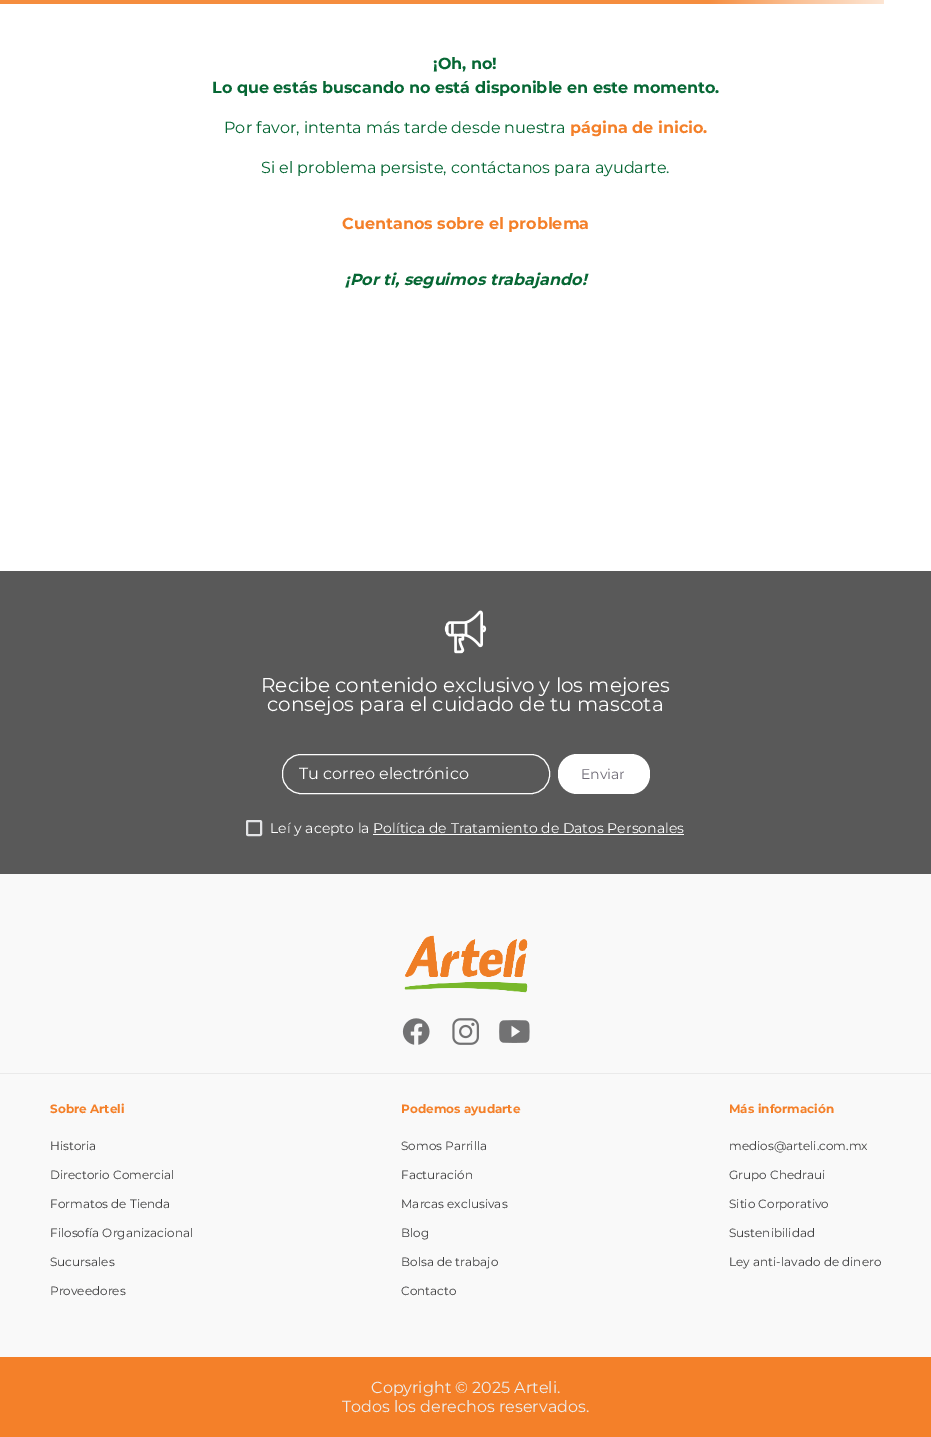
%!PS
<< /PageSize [931 1437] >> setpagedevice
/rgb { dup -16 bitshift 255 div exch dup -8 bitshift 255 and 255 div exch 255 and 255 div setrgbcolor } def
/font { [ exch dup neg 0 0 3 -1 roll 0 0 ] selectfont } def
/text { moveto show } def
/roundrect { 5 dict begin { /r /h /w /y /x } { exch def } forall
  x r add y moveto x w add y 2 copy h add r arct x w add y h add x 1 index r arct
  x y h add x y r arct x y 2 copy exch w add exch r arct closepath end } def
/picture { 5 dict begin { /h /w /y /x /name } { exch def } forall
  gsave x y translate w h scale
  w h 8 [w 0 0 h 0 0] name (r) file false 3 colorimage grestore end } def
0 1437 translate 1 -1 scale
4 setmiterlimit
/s1 { /Montserrat-Bold 16 font 16#066734 rgb } def
/s2 { /Montserrat-Regular 16 font 16#066734 rgb } def
/s3 { /Montserrat-Bold 16 font 16#F48029 rgb } def
/s4 { /Montserrat-BoldItalic 16 font 16#066734 rgb } def
/s5 { /Montserrat-Regular 20 font 16#FFFFFF rgb } def
/s6 { /Montserrat-Regular 16 font 16#FFFFFF rgb } def
/s7 { /Montserrat-Regular 14 font 16#706C77 rgb } def
/s8 { /Montserrat-Regular 14 font 16#FFFFFF rgb } def
/s9 { /Montserrat-Bold 12 font 16#F48029 rgb } def
/s10 { /Montserrat-Regular 12 font 16#3F3F40 rgb } def
/s11 { /Montserrat-Regular 16 font 16#EDEDED rgb } def
16#FFFFFF rgb
0 0 931 1437 rectfill
gsave 0 0 moveto 884 0 lineto 884 4 lineto 0 4 lineto closepath clip newpath
<< /ShadingType 2 /ColorSpace /DeviceRGB /Coords [0 2 884 2] /Extend [true true] /Function << /FunctionType 3 /Domain [0 1] /Functions [<< /FunctionType 2 /Domain [0 1] /C0 [0.961 0.553 0.243] /C1 [0.961 0.553 0.243] /N 1 >> << /FunctionType 2 /Domain [0 1] /C0 [0.961 0.553 0.243] /C1 [0.98 0.753 0.58] /N 1 >> << /FunctionType 2 /Domain [0 1] /C0 [0.98 0.753 0.58] /C1 [0.992 0.902 0.831] /N 1 >>] /Bounds [0.8 0.9] /Encode [0 1 0 1 0 1] >> >> shfill grestore
s1
(¡Oh, no!) 433 69 text
(Lo que estás buscando no está disponible en este momento.) 212 93 text
s2
(Por favor, intenta más tarde desde nuestra) 224 133 text
s3
(página de inicio.) 570 133 text
s2
(Si el problema persiste, contáctanos para ayudarte.) 261 173 text
s3
(Cuentanos sobre el problema) 342 229 text
s4
(¡Por ti, seguimos trabajando!) 345 285 text
16#F9F9F9 rgb
0 874 931 483 rectfill
16#595959 rgb
0 571 931 303 rectfill
(pic1.raw) 444 610 43 44 picture
s5
(Recibe contenido exclusivo y los mejores) 261 692 text
(consejos para el cuidado de tu mascota) 267 711 text
282.5 754.5 267 39 18.5 roundrect stroke
s6
(Tu correo electrónico) 299 779 text
558 754 92 40 19 roundrect fill
s7
(Enviar) 581 779 text
16#E3E4E6 rgb
2 setlinewidth
247 821 14 14 1 roundrect stroke
s8
(Leí y acepto la Política de Tratamiento de Datos Personales) 270 833 text
373 834 311 1 rectfill
(pic2.raw) 404 935 124 58 picture
(pic3.raw) 402 1018 28 27 picture
(pic4.raw) 452 1018 27 27 picture
(pic5.raw) 499 1020 31 23 picture
16#EAEAEA rgb
0 1073 931 1 rectfill
s9
(Sobre Arteli) 50 1113 text
s10
(Historia) 50 1150 text
(Directorio Comercial) 50 1179 text
(Formatos de Tienda) 50 1208 text
(Filosofía Organizacional) 50 1237 text
(Sucursales) 50 1266 text
(Proveedores) 50 1295 text
s9
(Podemos ayudarte) 401 1113 text
s10
(Somos Parrilla) 401 1150 text
(Facturación) 401 1179 text
(Marcas exclusivas) 401 1208 text
(Blog) 401 1237 text
(Bolsa de trabajo) 401 1266 text
(Contacto) 401 1295 text
s9
(Más información) 729 1113 text
s10
(medios@arteli.com.mx) 729 1150 text
(Grupo Chedraui) 729 1179 text
(Sitio Corporativo) 729 1208 text
(Sustenibilidad) 729 1237 text
(Ley anti-lavado de dinero) 729 1266 text
16#F48029 rgb
0 1357 931 80 rectfill
s11
(Copyright © 2025 Arteli.) 371 1393 text
(Todos los derechos reservados.) 342 1412 text
showpage
